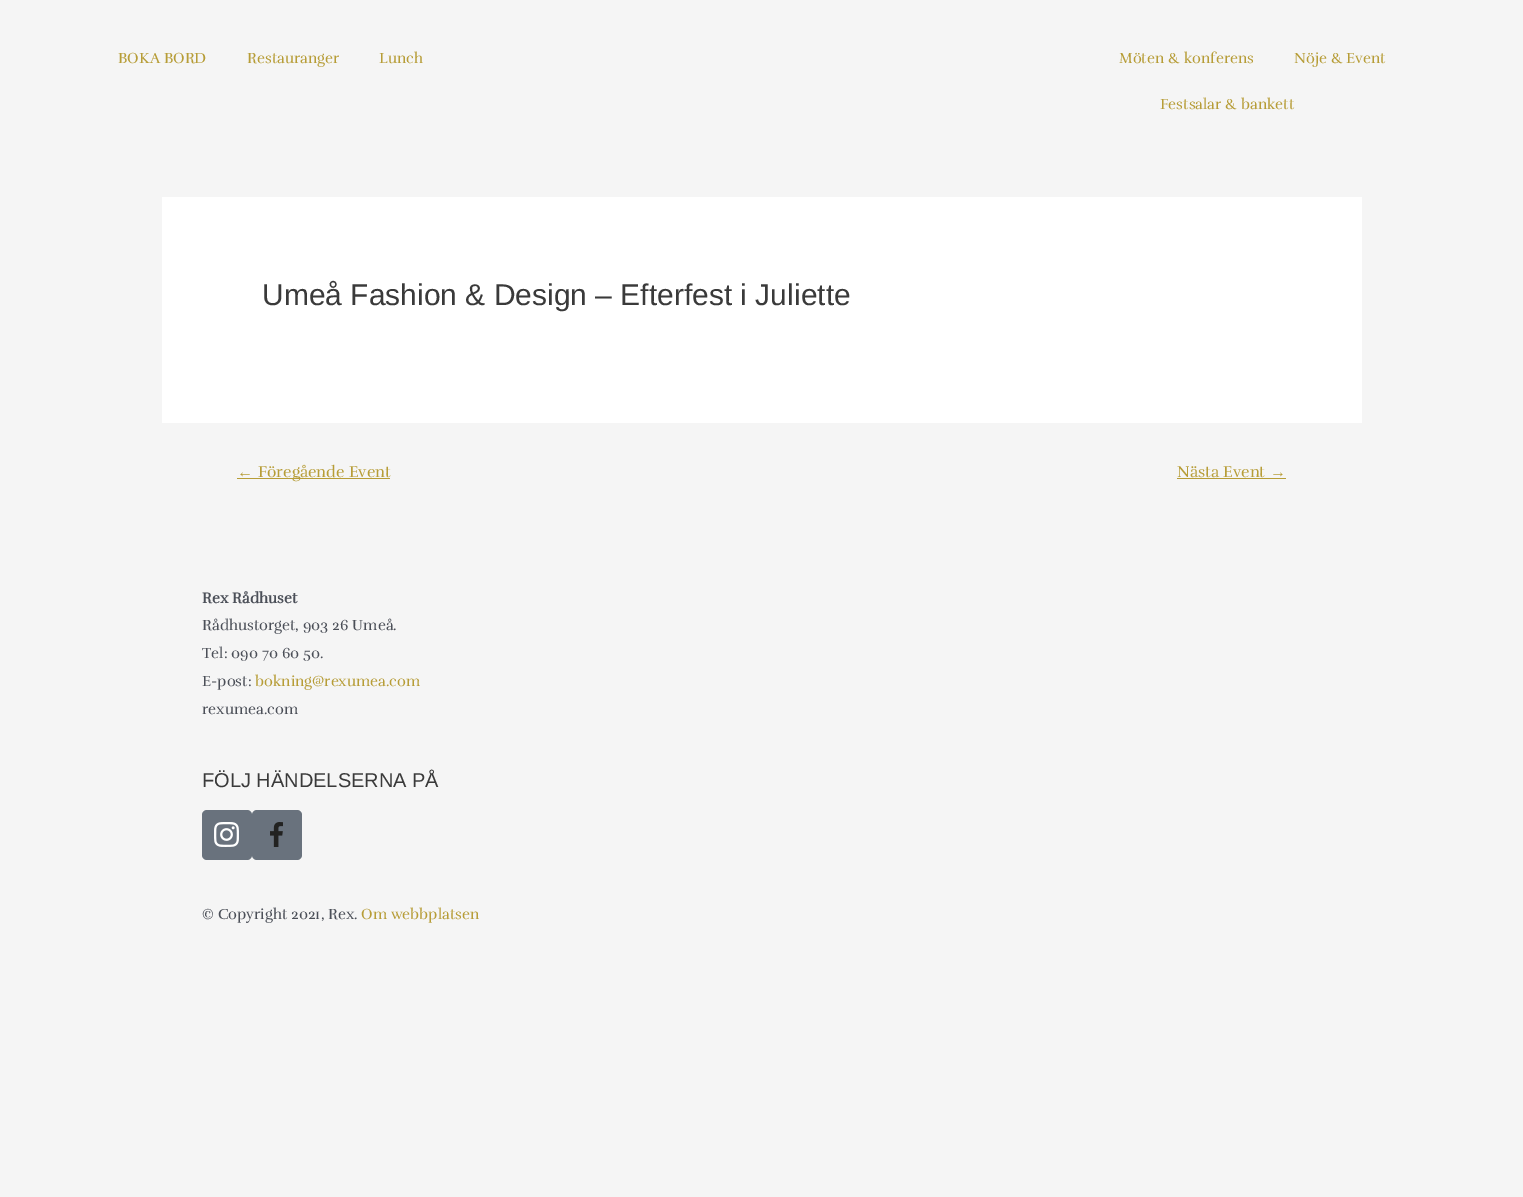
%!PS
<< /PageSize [1523 1197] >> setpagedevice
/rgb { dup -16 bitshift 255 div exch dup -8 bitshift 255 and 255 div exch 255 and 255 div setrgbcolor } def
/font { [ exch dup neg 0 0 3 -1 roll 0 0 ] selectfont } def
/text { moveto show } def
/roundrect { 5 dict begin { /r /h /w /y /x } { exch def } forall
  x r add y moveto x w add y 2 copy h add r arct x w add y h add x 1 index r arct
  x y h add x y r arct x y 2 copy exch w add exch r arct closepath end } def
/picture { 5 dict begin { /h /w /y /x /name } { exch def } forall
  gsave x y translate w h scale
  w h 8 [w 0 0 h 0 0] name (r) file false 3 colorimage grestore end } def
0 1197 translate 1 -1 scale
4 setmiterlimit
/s1 { /Rufina-Regular 15 font 16#B79D37 rgb } def
/s2 { /LiberationSans-Regular 30 font 16#3A3A3A rgb } def
/s3 { /LiberationSerif-Regular 16 font 16#B79D37 rgb } def
/s4 { /Rufina-Regular 16 font 16#B79D37 rgb } def
/s5 { /Rufina-Bold 15 font 16#4B4F58 rgb } def
/s6 { /Rufina-Regular 15 font 16#4B4F58 rgb } def
/s7 { /LiberationSans-Regular 20 font 16#3A3A3A rgb } def
16#F5F5F5 rgb
0 0 1523 1197 rectfill
s1
(BOKA BORD) 118 63 text
(Restauranger) 247 63 text
(Lunch) 379 63 text
(Möten & konferens) 1119 63 text
(Nöje & Event) 1294 63 text
(Festsalar & bankett) 1160 109 text
16#FFFFFF rgb
162 197 1200 226 rectfill
s2
(Umeå Fashion & Design – Efterfest i Juliette) 262 305 text
s3
(←) 237 477 text
237 478 153 1 rectfill
s4
(Föregående Event) 258 477 text
(Nästa Event) 1177 477 text
1177 478 109 1 rectfill
s3
(→) 1270 477 text
s5
(Rex Rådhuset) 202 603 text
s6
(Rådhustorget, 903 26 Umeå.) 202 630 text
(Tel: 090 70 60 50.) 202 658 text
(E-post:) 202 686 text
s1
(bokning@rexumea.com) 255 686 text
s6
(rexumea.com) 202 714 text
s7
(FÖLJ HÄNDELSERNA PÅ) 202 787 text
16#69727D rgb
202 810 50 50 5 roundrect fill
(pic1.raw) 214 822 25 25 picture
252 810 50 50 5 roundrect fill
(pic2.raw) 270 822 13 25 picture
s6
(© Copyright 2021, Rex.) 202 919 text
s1
(Om webbplatsen) 361 919 text
showpage
